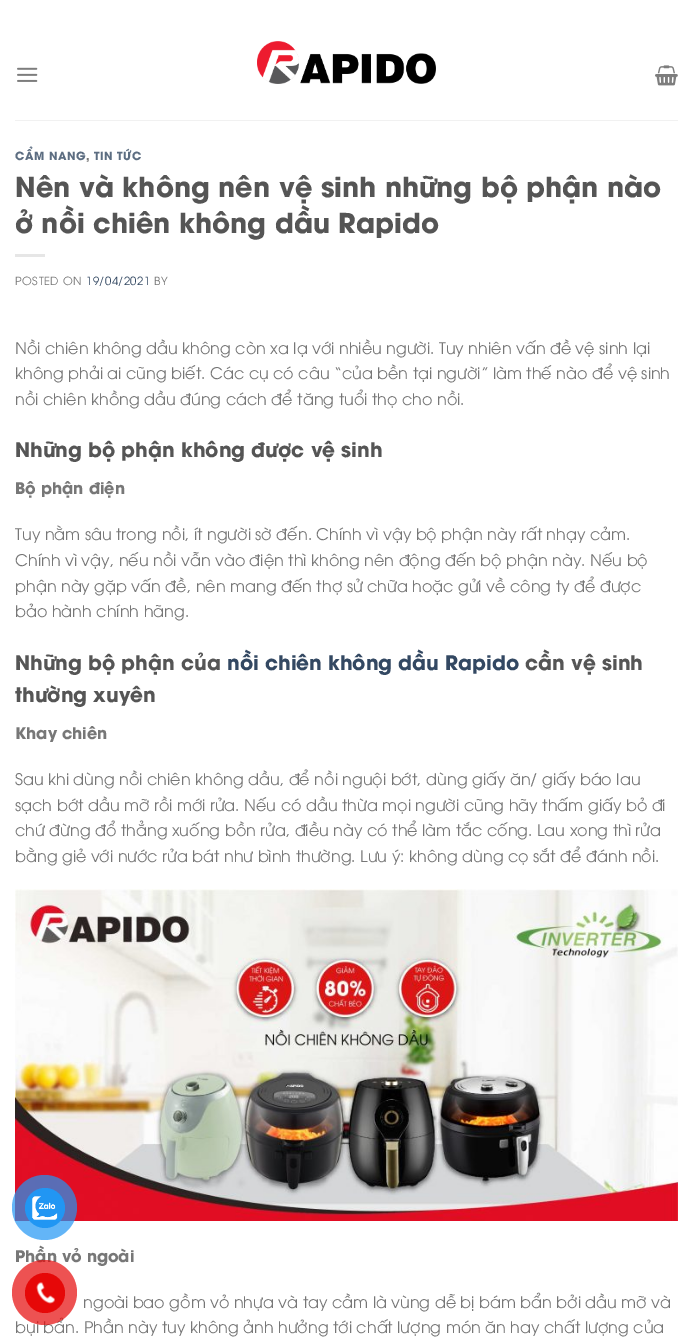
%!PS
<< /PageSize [693 1338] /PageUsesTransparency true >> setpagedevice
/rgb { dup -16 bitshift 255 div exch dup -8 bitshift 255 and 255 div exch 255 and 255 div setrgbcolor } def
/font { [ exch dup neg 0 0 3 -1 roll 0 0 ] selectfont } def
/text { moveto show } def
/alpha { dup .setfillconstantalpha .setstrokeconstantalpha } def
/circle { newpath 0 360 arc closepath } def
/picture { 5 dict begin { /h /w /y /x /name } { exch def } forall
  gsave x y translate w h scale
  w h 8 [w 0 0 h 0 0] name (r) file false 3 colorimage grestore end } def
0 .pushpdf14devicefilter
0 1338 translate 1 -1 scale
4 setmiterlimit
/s1 { /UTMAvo-Bold 27.2 font 16#555555 rgb } def
/s2 { /UTMAvo-Regular 16 font 16#777777 rgb } def
/s3 { /UTMAvo-Bold 20 font 16#555555 rgb } def
/s4 { /UTMAvo-Bold 16 font 16#777777 rgb } def
/s5 { /UTMAvo-Bold 20 font 16#334862 rgb } def
16#FFFFFF rgb
0 0 693 1338 rectfill
(pic1.raw) 17 67 21 15 picture
(pic2.raw) 257 41 179 43 picture
(pic3.raw) 655 65 23 21 picture
16#F1F1F1 rgb
15 120 663 1 rectfill
/UTMAvo-Bold 11.25 font
16#5C6D81 rgb
15 160 moveto 0.5 0 (CẨM NANG) ashow
16#777777 rgb
86 160 moveto 0.5 0 (,) ashow
16#5C6D81 rgb
94 160 moveto 0.5 0 (TIN TỨC) ashow
s1
(Nên và không nên vệ sinh những bộ phận nào) 15 197 text
(ở nồi chiên không dầu Rapido) 15 233 text
16#E6E6E6 rgb
15 254 30 3 rectfill
/UTMAvo-Regular 11.25 font
16#777777 rgb
15 285 moveto 0.5 0 (POSTED ON) ashow
16#334862 rgb
86 285 moveto 0.5 0 (19/04/2021) ashow
16#777777 rgb
154 285 moveto 0.5 0 (BY) ashow
s2
(Nồi chiên không dầu không còn xa lạ với nhiều người. Tuy nhiên vấn đề vệ sinh lại) 15 354 text
(không phải ai cũng biết. Các cụ có câu “của bền tại người” làm thế nào để vệ sinh) 15 379 text
(nồi chiên khồng dầu đúng cách để tăng tuổi thọ cho nồi.) 15 405 text
s3
(Những bộ phận không được vệ sinh) 15 457 text
s4
(Bộ phận điện) 15 494 text
s2
(Tuy nằm sâu trong nồi, ít người sờ đến. Chính vì vậy bộ phận này rất nhạy cảm.) 15 540 text
(Chính vì vậy, nếu nồi vẫn vào điện thì không nên động đến bộ phận này. Nếu bộ) 15 566 text
(phận này gặp vấn đề, nên mang đến thợ sử chữa hoặc gửi về công ty để được) 15 592 text
(bảo hành chính hãng.) 15 617 text
s3
(Những bộ phận của) 15 670 text
s5
(nồi chiên không dầu Rapido) 227 670 text
s3
(cần vệ sinh) 525 670 text
(thường xuyên) 15 702 text
s4
(Khay chiên) 15 739 text
s2
(Sau khi dùng nồi chiên không dầu, để nồi nguội bớt, dùng giấy ăn/ giấy báo lau) 15 785 text
(sạch bớt dầu mỡ rồi mới rửa. Nếu có dầu thừa mọi người cũng hãy thấm giấy bỏ đi) 15 811 text
(chứ đừng đổ thẳng xuống bồn rửa, điều này có thể làm tắc cống. Lau xong thì rửa) 15 836 text
(bằng giẻ với nước rửa bát như bình thường. Lưu ý: không dùng cọ sắt để đánh nồi.) 15 862 text
(pic4.raw) 15 889 663 332 picture
s4
(Phần vỏ ngoài) 15 1262 text
s2
(ngoài bao gồm vỏ nhựa và tay cầm là vùng dễ bị bám bẩn bởi dầu mỡ và) 83 1308 text
(bụi bẩn. Phần này tuy không ảnh hưởng tới chất lượng món ăn hay chất lượng của) 15 1333 text
0.7 alpha
16#2196F3 rgb
44.5 1207.5 32.5 circle fill
1 alpha
45 1208 20 circle fill
(pic5.raw) 32 1196 26 24 picture
0.7 alpha
16#E60808 rgb
44.5 1292.5 32.5 circle fill
1 alpha
45 1293 20 circle fill
(pic6.raw) 36 1282 19 22 picture
.poppdf14devicefilter showpage
